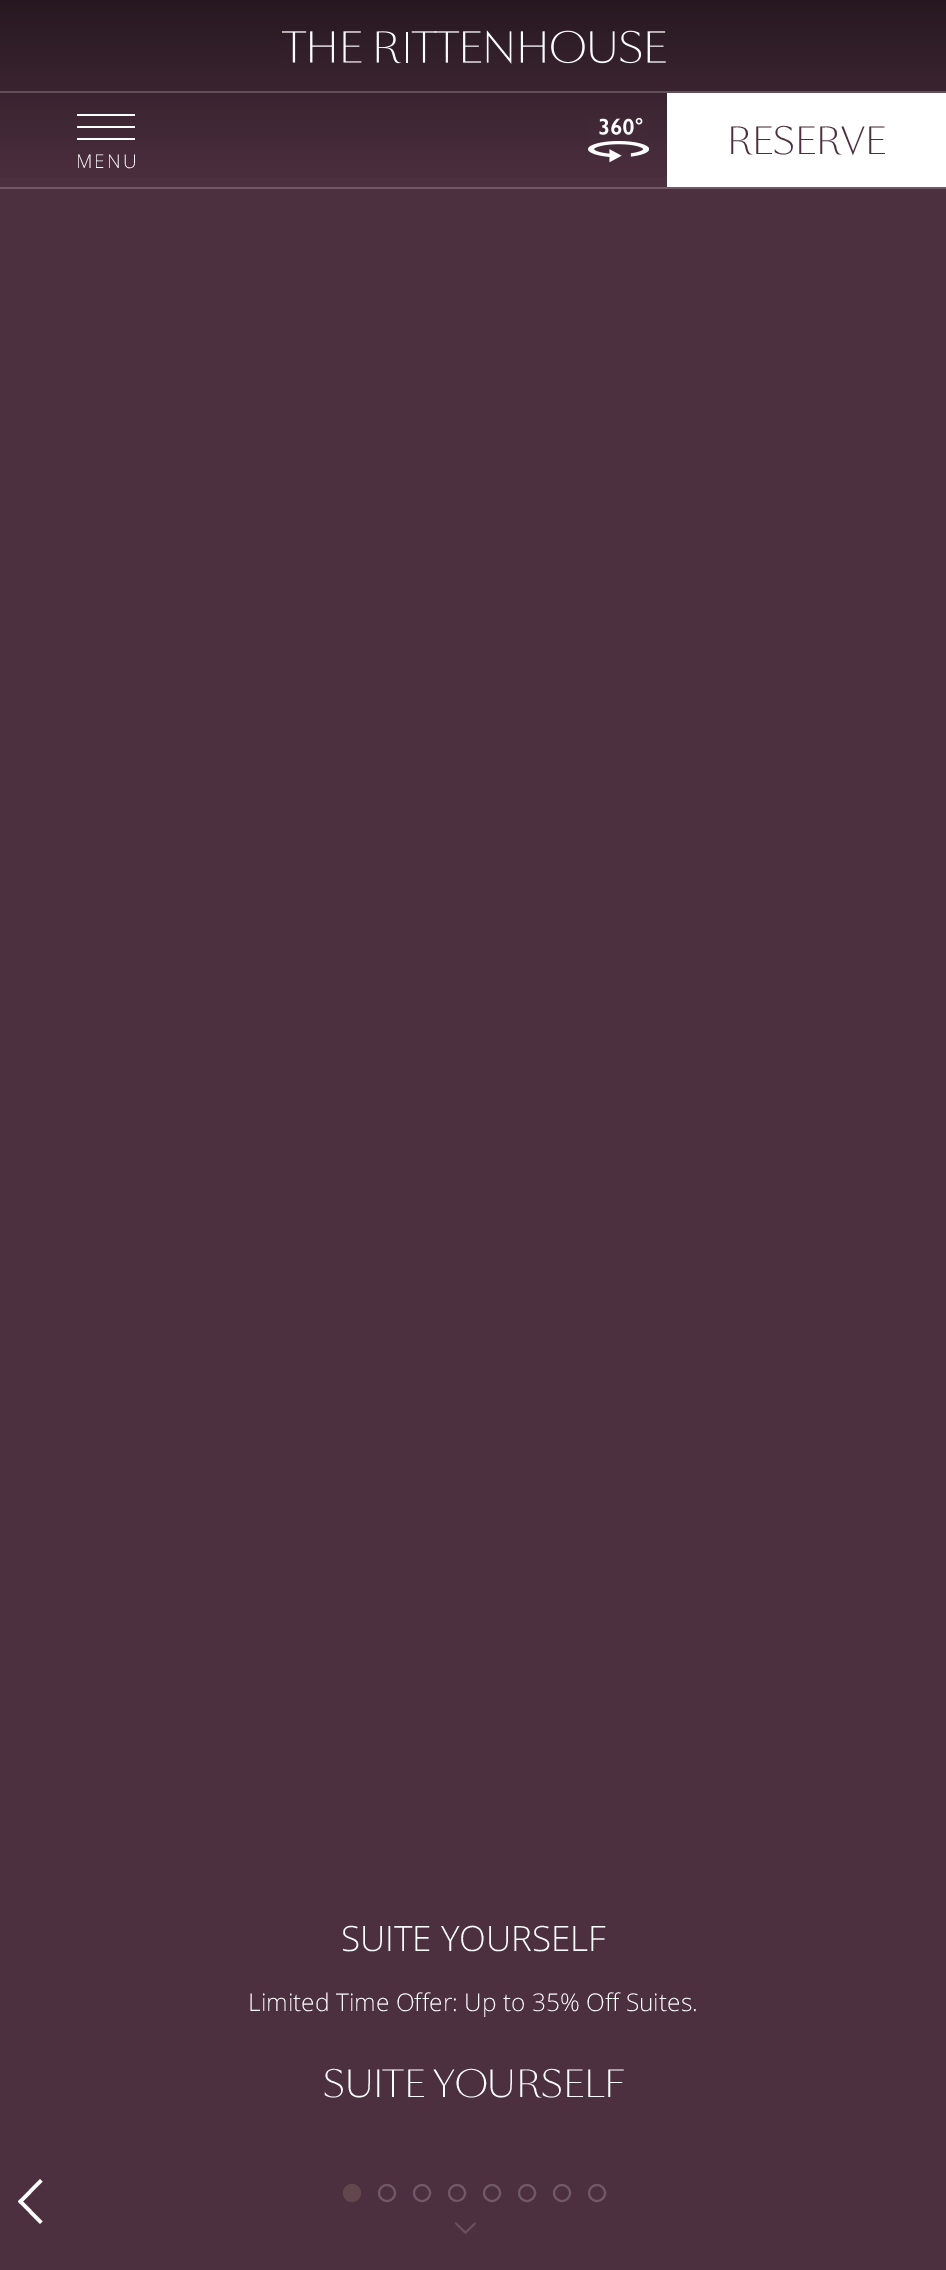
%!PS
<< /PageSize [946 2270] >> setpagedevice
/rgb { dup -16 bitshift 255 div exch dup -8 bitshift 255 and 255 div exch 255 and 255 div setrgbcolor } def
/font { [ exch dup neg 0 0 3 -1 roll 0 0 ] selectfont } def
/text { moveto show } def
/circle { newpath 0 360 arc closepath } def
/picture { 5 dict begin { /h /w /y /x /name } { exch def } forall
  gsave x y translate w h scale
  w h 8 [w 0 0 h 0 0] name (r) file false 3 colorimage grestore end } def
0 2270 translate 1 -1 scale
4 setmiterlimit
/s1 { /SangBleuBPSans-Light 35 font 16#4D3040 rgb } def
/s2 { /OpenSans-Light 35 font 16#FFFFFF rgb } def
/s3 { /OpenSans-Light 24.5 font 16#FFFFFF rgb } def
/s4 { /SangBleuBPSans-Light 35 font 16#FFFFFF rgb } def
16#4D3040 rgb
0 0 946 2270 rectfill
gsave 0 0 moveto 946 0 lineto 946 177 lineto 0 177 lineto closepath clip newpath
<< /ShadingType 2 /ColorSpace /DeviceRGB /Coords [473 189 473 0] /Extend [true true] /Function << /FunctionType 2 /Domain [0 1] /C0 [0.302 0.188 0.251] /C1 [0.153 0.094 0.125] /N 1 >> >> shfill grestore
(pic1.raw) 282 30 384 34 picture
16#615059 rgb
0 91 946 2 rectfill
16#715966 rgb
0 187 946 2 rectfill
(pic2.raw) 588 117 61 46 picture
16#FFFFFF rgb
667 93 279 94 rectfill
s1
(RESERVE) 727 154 text
16#FFFFFF rgb
77 114 58 2 rectfill
77 126 58 2 rectfill
77 138 58 2 rectfill
/OpenSans-Light 19 font
76 168 moveto 2 0 (MENU) ashow
s2
(SUITE YOURSELF) 341 1951 text
s3
(Limited Time Offer: Up to 35% Off Suites.) 248 2011 text
s4
(SUITE YOURSELF) 323 2097 text
42.5 2221.5 moveto 40 2224 lineto 18 2201.5 lineto 20.5 2199 lineto closepath fill
42.5 2181.5 moveto 20.5 2204 lineto 18 2201.5 lineto 40 2179 lineto closepath fill
16#63474C rgb
352 2193 9 circle fill
16#715966 rgb
2 setlinewidth
387 2193 8 circle stroke
422 2193 8 circle stroke
457 2193 8 circle stroke
492 2193 8 circle stroke
527 2193 8 circle stroke
562 2193 8 circle stroke
597 2193 8 circle stroke
(pic3.raw) 454 2201 23 34 picture
showpage
